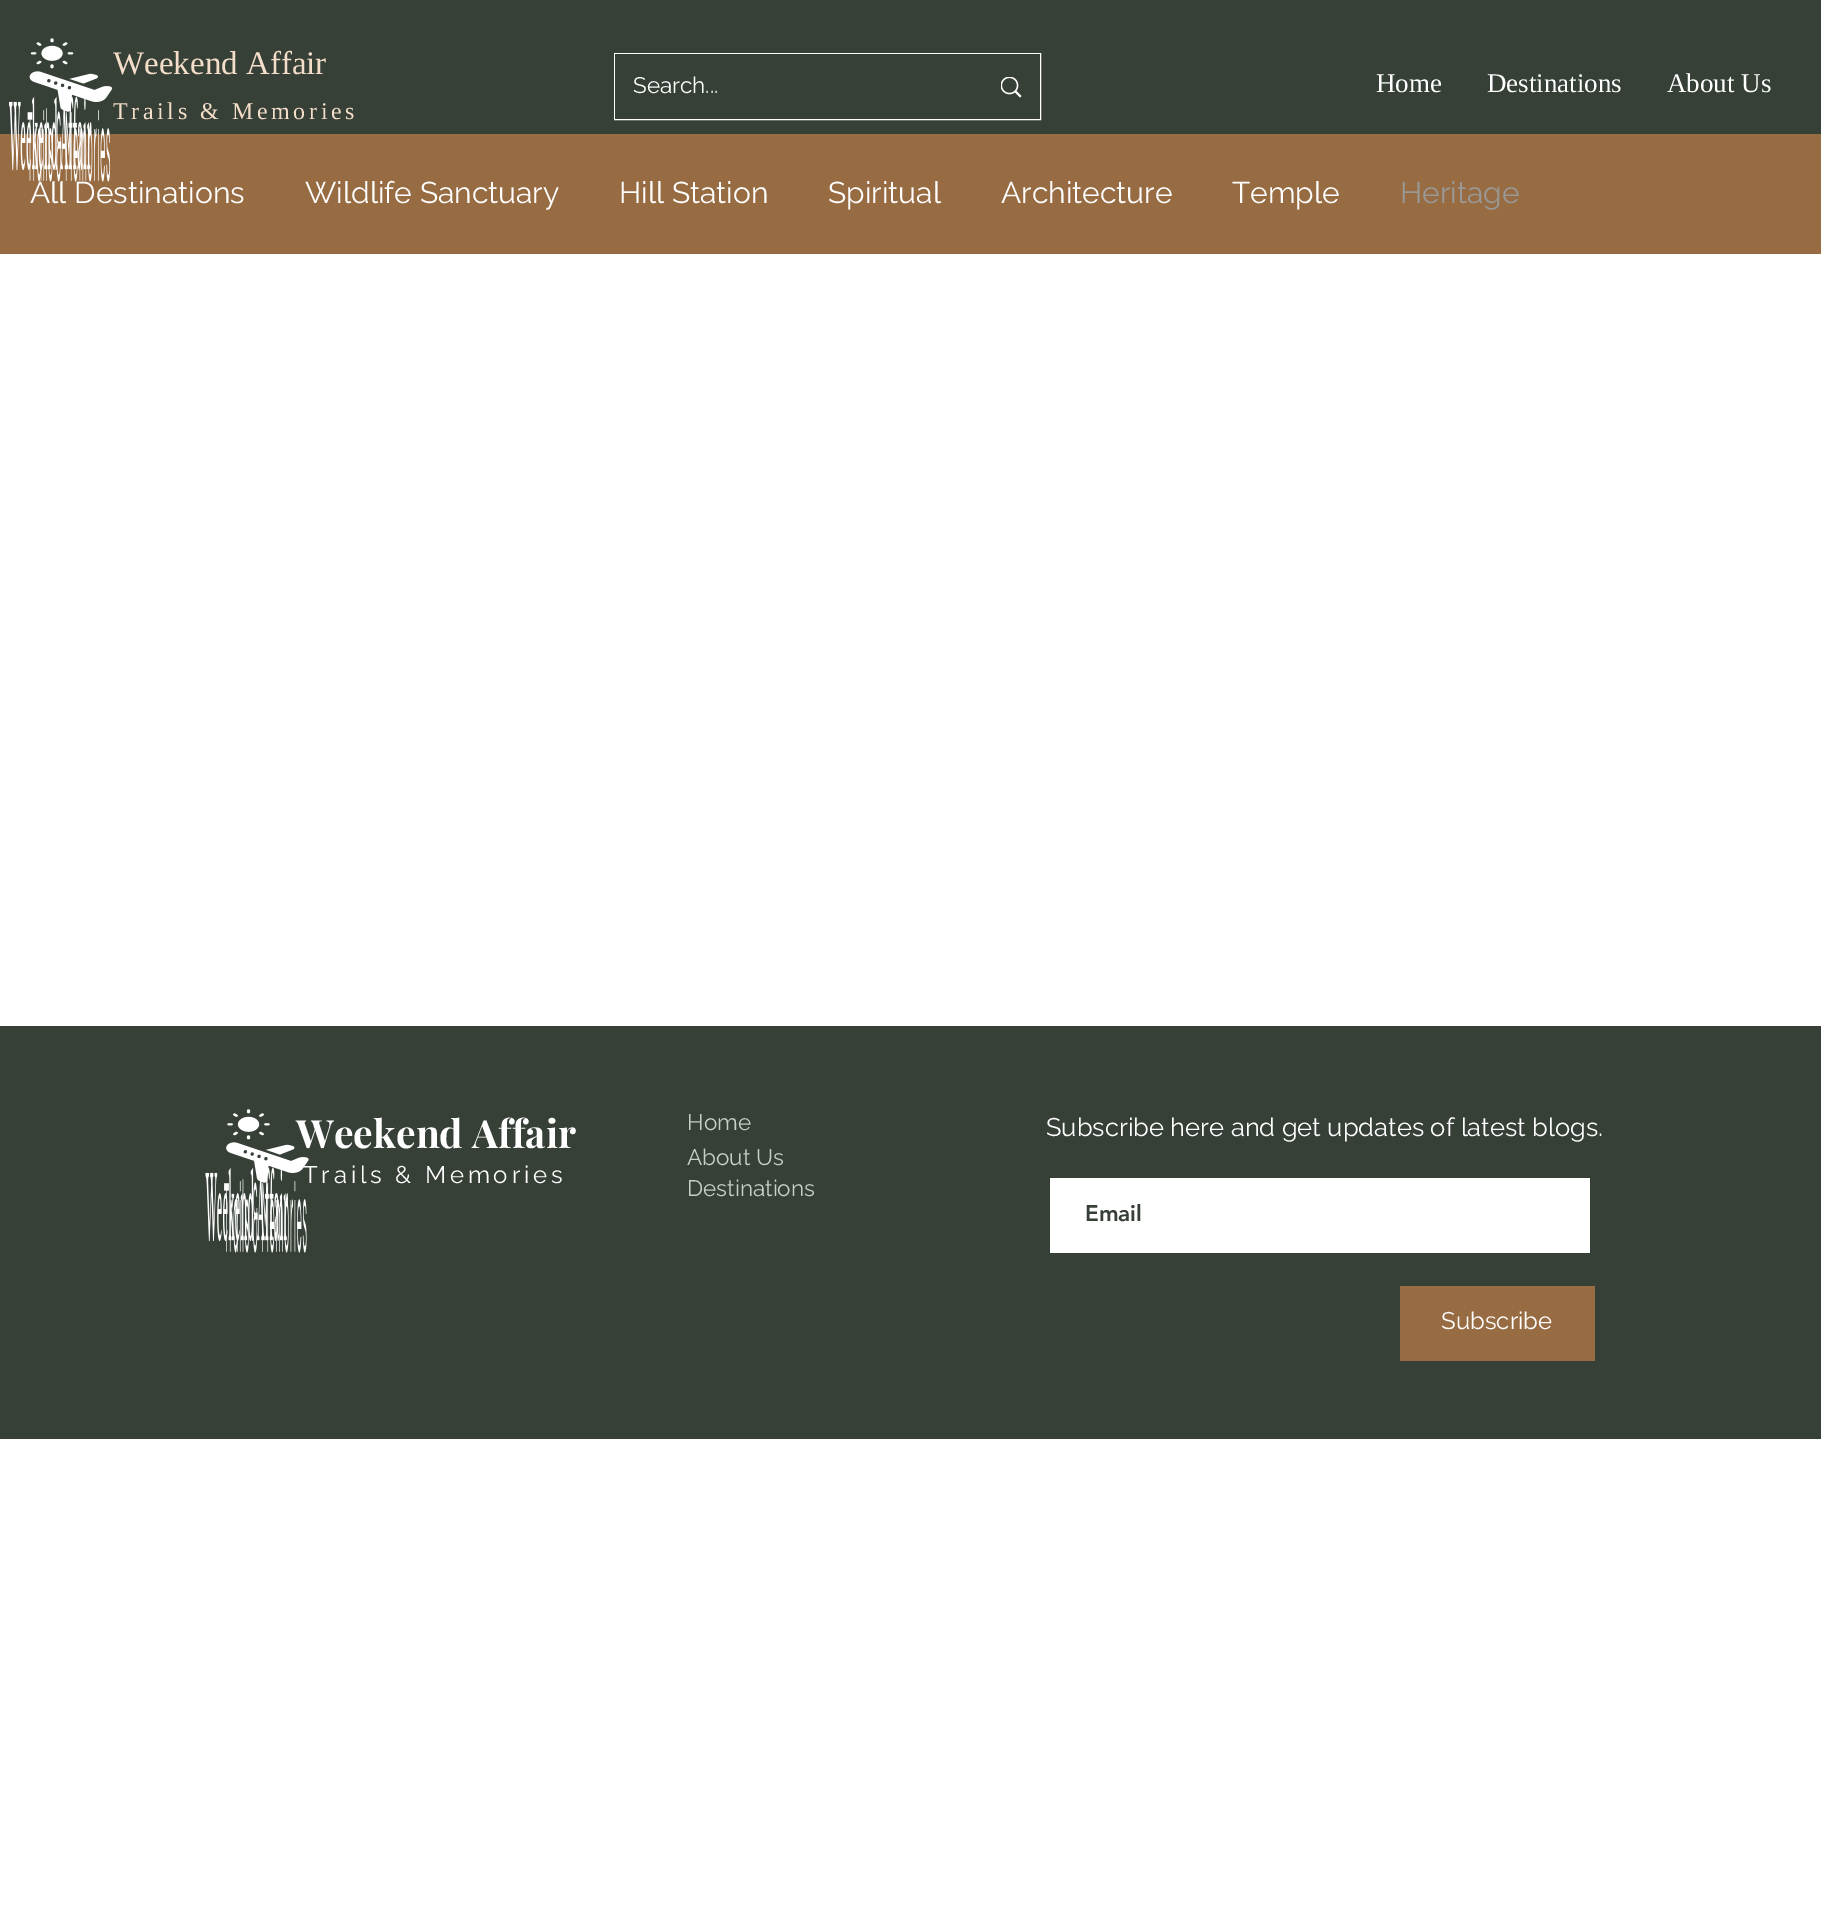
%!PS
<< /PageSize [1821 1909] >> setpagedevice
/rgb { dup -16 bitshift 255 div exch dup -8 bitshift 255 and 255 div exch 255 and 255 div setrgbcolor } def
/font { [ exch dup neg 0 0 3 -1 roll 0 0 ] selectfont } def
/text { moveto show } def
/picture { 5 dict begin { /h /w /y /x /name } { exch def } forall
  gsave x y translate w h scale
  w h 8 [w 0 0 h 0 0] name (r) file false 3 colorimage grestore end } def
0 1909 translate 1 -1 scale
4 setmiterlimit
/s1 { /Raleway-Regular 30 font 16#FFFFFF rgb } def
/s2 { /LiberationSerif-Regular 33 font 16#F4DEC9 rgb } def
/s3 { /Raleway-Regular 22.5 font 16#FFFFFF rgb } def
/s4 { /LiberationSerif-Regular 27 font 16#FFFFFF rgb } def
/s5 { /Raleway-Regular 30 font 16#999997 rgb } def
/s6 { /PlayfairDisplay-Bold 39 font 16#FFFFFF rgb } def
/s7 { /Raleway-Regular 22.5 font 16#C7CFC8 rgb } def
/s8 { /Raleway-Regular 25.5 font 16#FFFFFF rgb } def
/s9 { /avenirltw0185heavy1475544-Black 22.5 font 16#364037 rgb } def
/s10 { /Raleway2-Regular 24 font 16#FFFFFF rgb } def
16#FFFFFF rgb
0 0 1821 1909 rectfill
16#364037 rgb
0 0 1821 134 rectfill
16#986C43 rgb
0 134 1821 120 rectfill
s1
(All Destinations) 30 203 text
(pic1.raw) 9 38 104 144 picture
s2
(Weekend Affair) 113 74 text
/LiberationSerif-Regular 24 font
113 119 moveto 3.6 0 (Trails & Memories) ashow
16#FFFFFF rgb
2 setlinewidth
615 54 425 65 rectstroke
16#364037 rgb
615 54 425 65 rectfill
s3
(Search...) 633 93 text
(pic2.raw) 1001 77 21 21 picture
s4
(Home) 1376 92 text
(Destinations) 1487 92 text
(About Us) 1667 92 text
s1
(Wildlife Sanctuary) 305 203 text
(Hill Station) 619 203 text
(Spiritual) 828 203 text
(Architecture) 1001 203 text
(Temple) 1232 203 text
s5
(Heritage) 1400 203 text
16#364037 rgb
0 1026 1821 413 rectfill
(pic3.raw) 205 1109 104 144 picture
s6
(Weekend Affair) 296 1148 text
s7
(Home) 687 1130 text
s8
(Subscribe here and get updates of latest blogs.) 1046 1136 text
s7
(About Us) 687 1165 text
/Raleway-Regular 24 font
16#FFFFFF rgb
303 1183 moveto 3.8 0 (Trails & Memories) ashow
s7
(Destinations) 687 1196 text
16#FFFFFF rgb
1050 1178 540 75 rectfill
s9
(Email) 1085 1221 text
16#986C43 rgb
1400 1286 195 75 rectfill
s10
(Subscribe) 1441 1329 text
showpage
